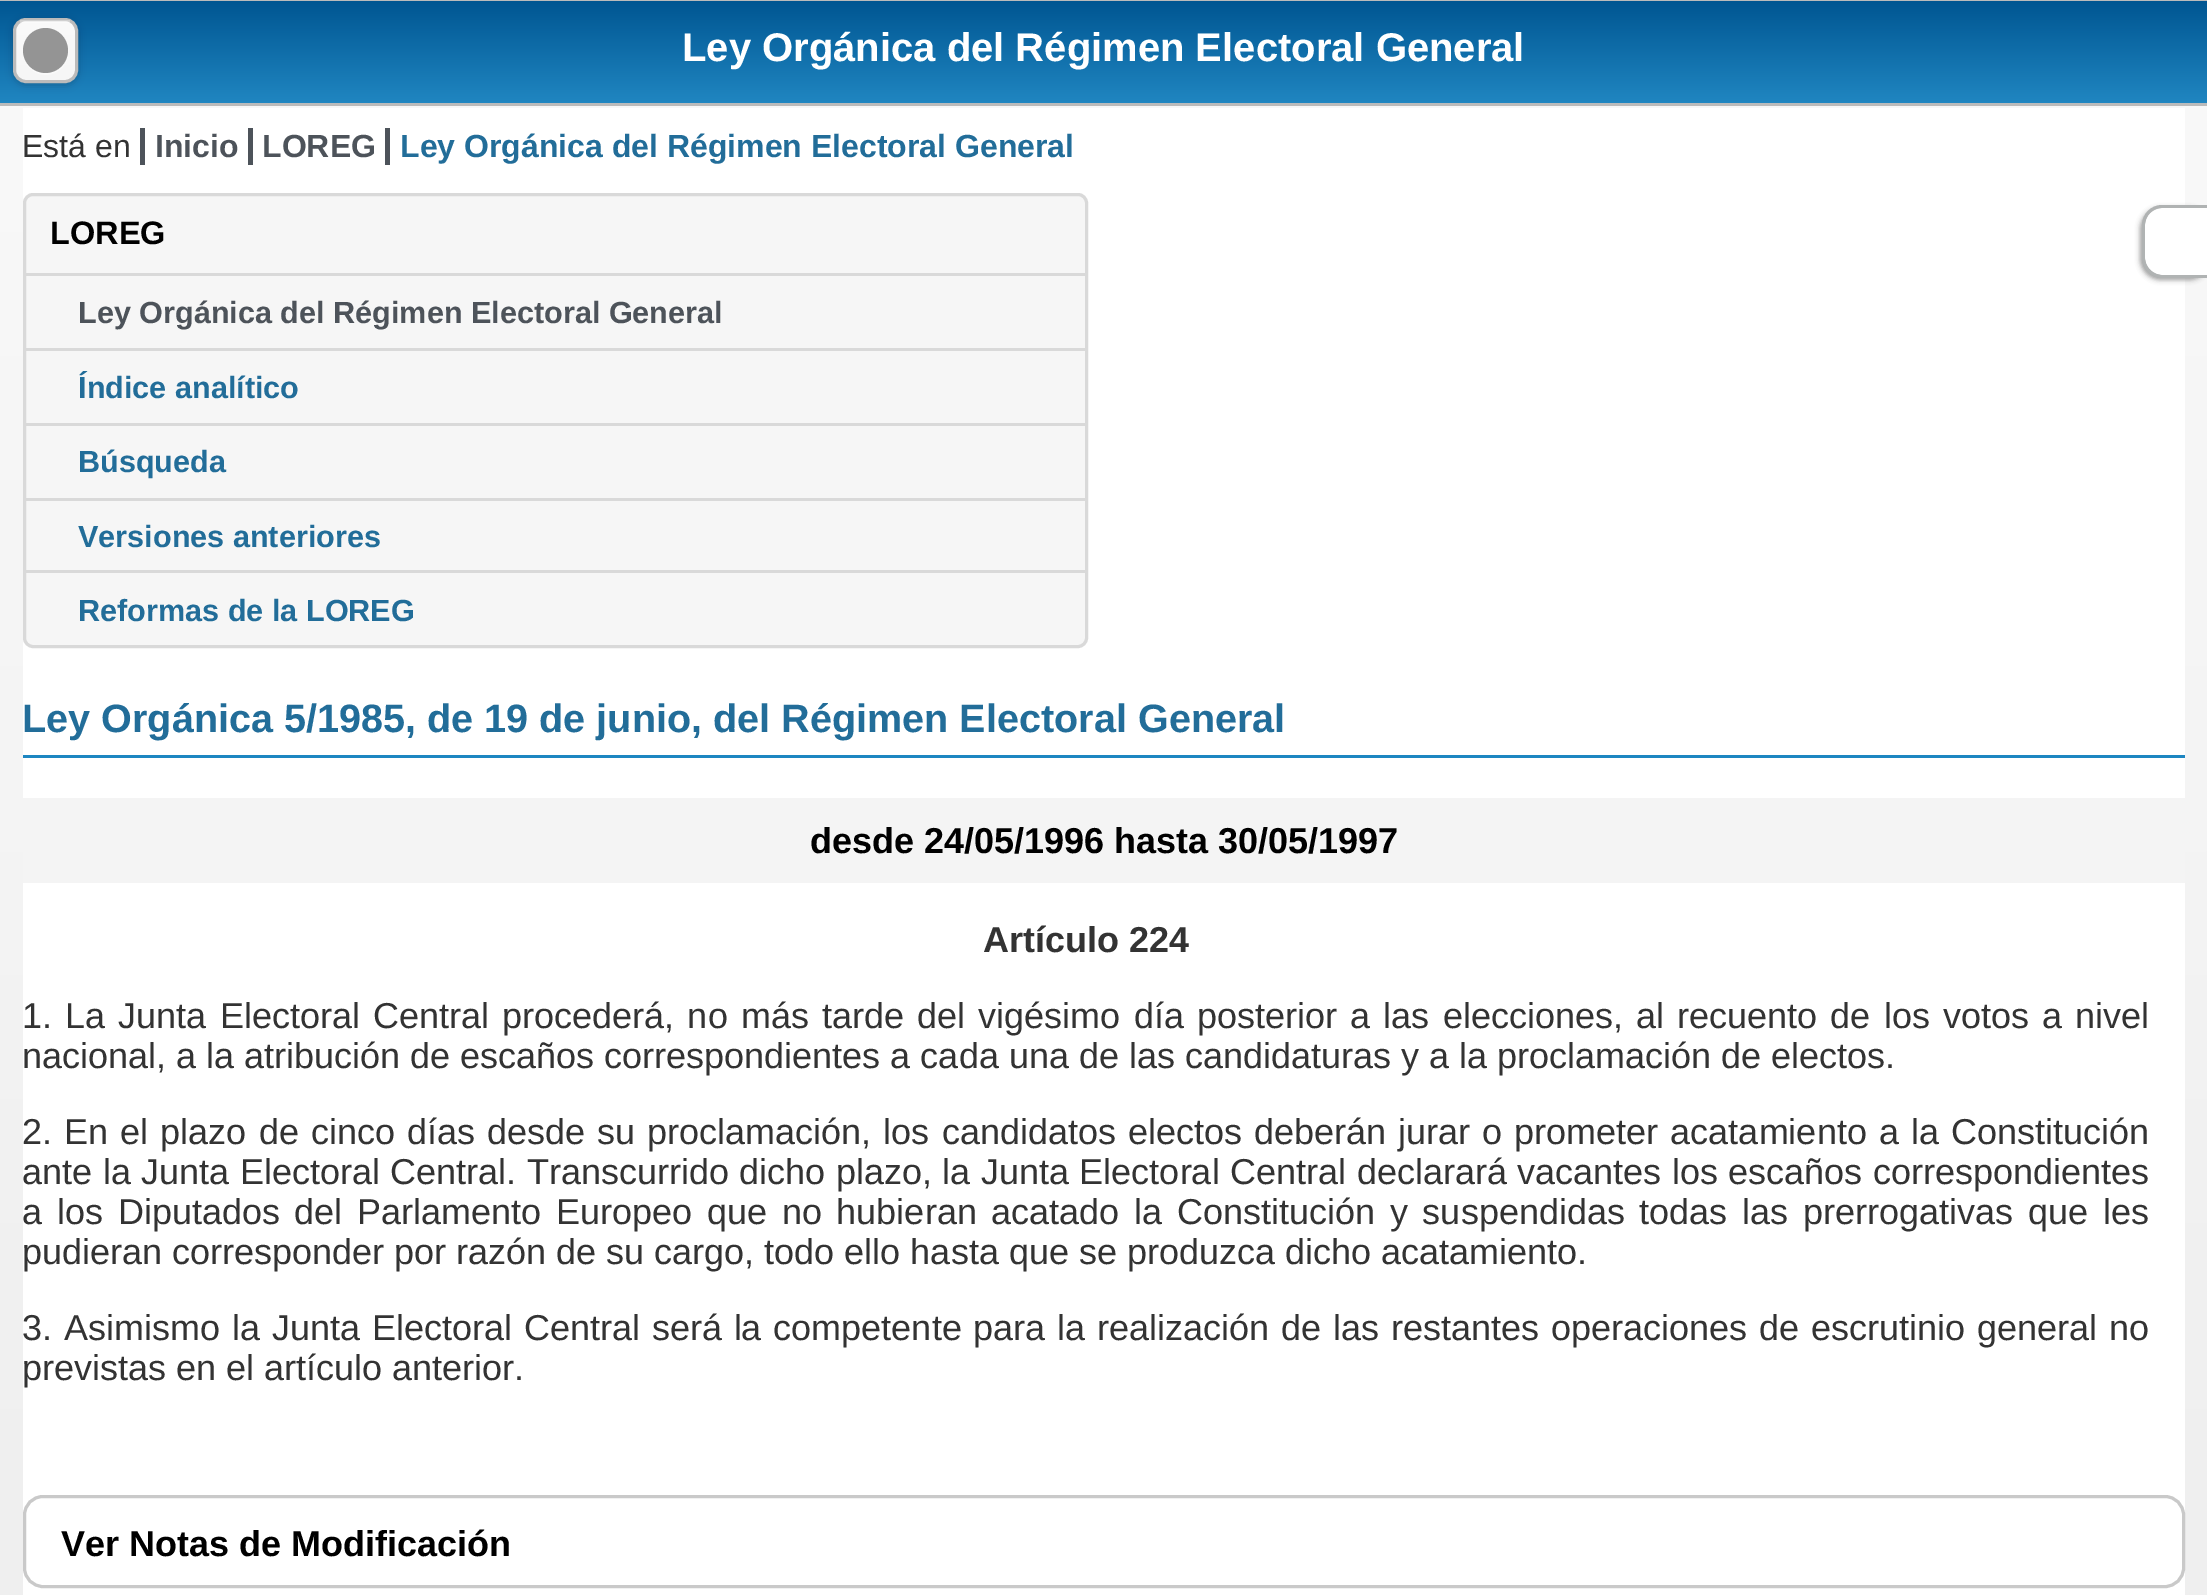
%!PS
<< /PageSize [2207 1595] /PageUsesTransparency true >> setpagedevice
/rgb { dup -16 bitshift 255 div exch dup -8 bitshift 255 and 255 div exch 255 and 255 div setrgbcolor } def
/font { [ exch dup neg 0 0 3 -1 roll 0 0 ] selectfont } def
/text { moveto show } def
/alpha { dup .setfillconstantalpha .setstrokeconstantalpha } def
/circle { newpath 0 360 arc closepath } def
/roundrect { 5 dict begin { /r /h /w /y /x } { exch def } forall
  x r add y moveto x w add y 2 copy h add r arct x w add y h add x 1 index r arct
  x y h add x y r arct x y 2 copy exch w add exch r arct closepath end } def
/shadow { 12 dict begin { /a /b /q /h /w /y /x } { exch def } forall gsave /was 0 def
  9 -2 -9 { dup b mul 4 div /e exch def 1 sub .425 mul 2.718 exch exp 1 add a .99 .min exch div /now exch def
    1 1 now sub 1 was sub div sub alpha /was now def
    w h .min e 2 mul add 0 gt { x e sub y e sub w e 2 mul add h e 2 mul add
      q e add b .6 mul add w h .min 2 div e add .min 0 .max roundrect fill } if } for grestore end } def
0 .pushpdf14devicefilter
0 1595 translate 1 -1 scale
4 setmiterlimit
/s1 { /LiberationSans-Bold 40 font 16#FFFFFF rgb } def
/s2 { /LiberationSans-Regular 32 font 16#333333 rgb } def
/s3 { /LiberationSans-Bold 32 font 16#4D535A rgb } def
/s4 { /LiberationSans-Bold 32 font 16#226D99 rgb } def
/s5 { /LiberationSans-Bold 32.5 font 16#000000 rgb } def
/s6 { /LiberationSans-Bold 30.6 font 16#4D535A rgb } def
/s7 { /LiberationSans-Bold 30.6 font 16#226D99 rgb } def
/s8 { /LiberationSans-Bold 39.6 font 16#226D99 rgb } def
/s9 { /LiberationSans-Bold 36 font 16#000000 rgb } def
/s10 { /LiberationSans-Bold 36 font 16#333333 rgb } def
/s11 { /LiberationSans-Regular 36 font 16#333333 rgb } def
16#FFFFFF rgb
0 0 2207 1595 rectfill
gsave 0 106 moveto 2207 106 lineto 2207 108 lineto 0 108 lineto closepath clip newpath
<< /ShadingType 2 /ColorSpace /DeviceRGB /Coords [1104 0 1104 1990] /Extend [true true] /Function << /FunctionType 2 /Domain [0 1] /C0 [0.976 0.976 0.976] /C1 [0.933 0.933 0.933] /N 1 >> >> shfill grestore
gsave 0 1 moveto 2207 1 lineto 2207 103 lineto 0 103 lineto closepath clip newpath
<< /ShadingType 2 /ColorSpace /DeviceRGB /Coords [1104 0 1104 103] /Extend [true true] /Function << /FunctionType 2 /Domain [0 1] /C0 [0 0.337 0.569] /C1 [0.125 0.525 0.757] /N 1 >> >> shfill grestore
16#BBBBBB rgb
0 0 2207 1 rectfill
0 103 2207 3 rectfill
16#000000 rgb
13 20 65 65 13 4 0.2 shadow
gsave 15 20 60 60 10 roundrect clip newpath
<< /ShadingType 2 /ColorSpace /DeviceRGB /Coords [45 20 45 80] /Extend [true true] /Function << /FunctionType 2 /Domain [0 1] /C0 [0.98 0.98 0.98] /C1 [0.965 0.965 0.965] /N 1 >> >> shfill grestore
16#BBBBBB rgb
3 setlinewidth
14.5 19.5 62 62 11.5 roundrect stroke
0.3 alpha
16#FFFFFF rgb
20 20 50 3 rectfill
1 alpha
16#FAFAFA rgb
23 56 moveto 24 61 27 66 31 69 curveto 47 84 73 68 67 47 curveto 71 74 30 83 23 56 curveto closepath fill
0.4 alpha
16#000000 rgb
45.5 50.5 22.5 circle fill
1 alpha
s1
(Ley Orgánica del Régimen Electoral General) 682 61 text
gsave 0 108 moveto 2207 108 lineto 2207 1595 lineto 0 1595 lineto closepath clip newpath
<< /ShadingType 2 /ColorSpace /DeviceRGB /Coords [1104 107 1104 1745] /Extend [true true] /Function << /FunctionType 2 /Domain [0 1] /C0 [0.976 0.976 0.976] /C1 [0.933 0.933 0.933] /N 1 >> >> shfill grestore
23 108 2162 1487 rectfill
s2
(Está en) 22 157 text
16#4D535A rgb
140 128 5 37 rectfill
s3
(Inicio) 155 157 text
248 128 5 37 rectfill
(LOREG) 262 157 text
385 128 5 37 rectfill
s4
(Ley Orgánica del Régimen Electoral General) 400 157 text
16#F6F6F6 rgb
24.5 194.5 1062 452 8.5 roundrect gsave fill grestore
16#D9D9D9 rgb
stroke
s5
(LOREG) 50 244 text
16#D9D9D9 rgb
25 273 1060 3 rectfill
s6
(Ley Orgánica del Régimen Electoral General) 78 323 text
16#D9D9D9 rgb
25 348 1060 3 rectfill
s7
(Índice analítico) 78 398 text
16#D9D9D9 rgb
25 423 1060 3 rectfill
s7
(Búsqueda) 78 472 text
16#D9D9D9 rgb
25 498 1060 3 rectfill
s7
(Versiones anteriores) 78 547 text
16#D9D9D9 rgb
25 570 1060 3 rectfill
s7
(Reformas de la LOREG) 78 621 text
16#1D86C1 rgb
23 755 2162 3 rectfill
s8
(Ley Orgánica 5/1985, de 19 de junio, del Régimen Electoral General) 22 732 text
16#F4F4F4 rgb
23 798 2162 85 rectfill
s9
(desde 24/05/1996 hasta 30/05/1997) 810 853 text
s10
(Artículo 224) 983 952 text
/LiberationSans-Regular 36 font
22 1028 moveto 3.2 0 32 (1. La Junta Electoral Central procederá, no más tarde del vigésimo día posterior a las elecciones, al recuento de los votos a nivel) widthshow
(nacional, a la atribución de escaños correspondientes a cada una de las candidaturas y a la proclamación de electos.) 22 1068 text
22 1144 moveto 2.1 0 32 (2. En el plazo de cinco días desde su proclamación, los candidatos electos deberán jurar o prometer acatamiento a la Constitución) widthshow
22 1184 moveto 0.5 0 32 (ante la Junta Electoral Central. Transcurrido dicho plazo, la Junta Electoral Central declarará vacantes los escaños correspondientes) widthshow
22 1224 moveto 4.75 0 32 (a los Diputados del Parlamento Europeo que no hubieran acatado la Constitución y suspendidas todas las prerrogativas que les) widthshow
(pudieran corresponder por razón de su cargo, todo ello hasta que se produzca dicho acatamiento.) 22 1264 text
22 1340 moveto 1.9 0 32 (3. Asimismo la Junta Electoral Central será la competente para la realización de las restantes operaciones de escrutinio general no) widthshow
(previstas en el artículo anterior.) 22 1380 text
16#C9C9C9 rgb
24.5 1496.5 2159 90 18.5 roundrect stroke
s9
(Ver Notas de Modificación) 61 1556 text
16#7A7A7A rgb
2140 208 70 72 20 2.5 0.7 shadow
16#FFFFFF rgb
2163 208 moveto 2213 208 lineto 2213 275 lineto 2163 275 lineto 2153 275 2145 267 2145 257 curveto 2145 226 lineto 2145 216 2153 208 2163 208 curveto closepath fill
16#B0B3B3 rgb
2162 205 moveto 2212 205 lineto 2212 278 lineto 2162 278 lineto 2151 278 2142 269 2142 258 curveto 2142 225 lineto 2142 214 2151 205 2162 205 curveto closepath 2162 208 moveto 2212 208 lineto 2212 275 lineto 2162 275 lineto 2153 275 2145 267 2145 258 curveto 2145 225 lineto 2145 215 2153 208 2162 208 curveto closepath eofill
.poppdf14devicefilter showpage
